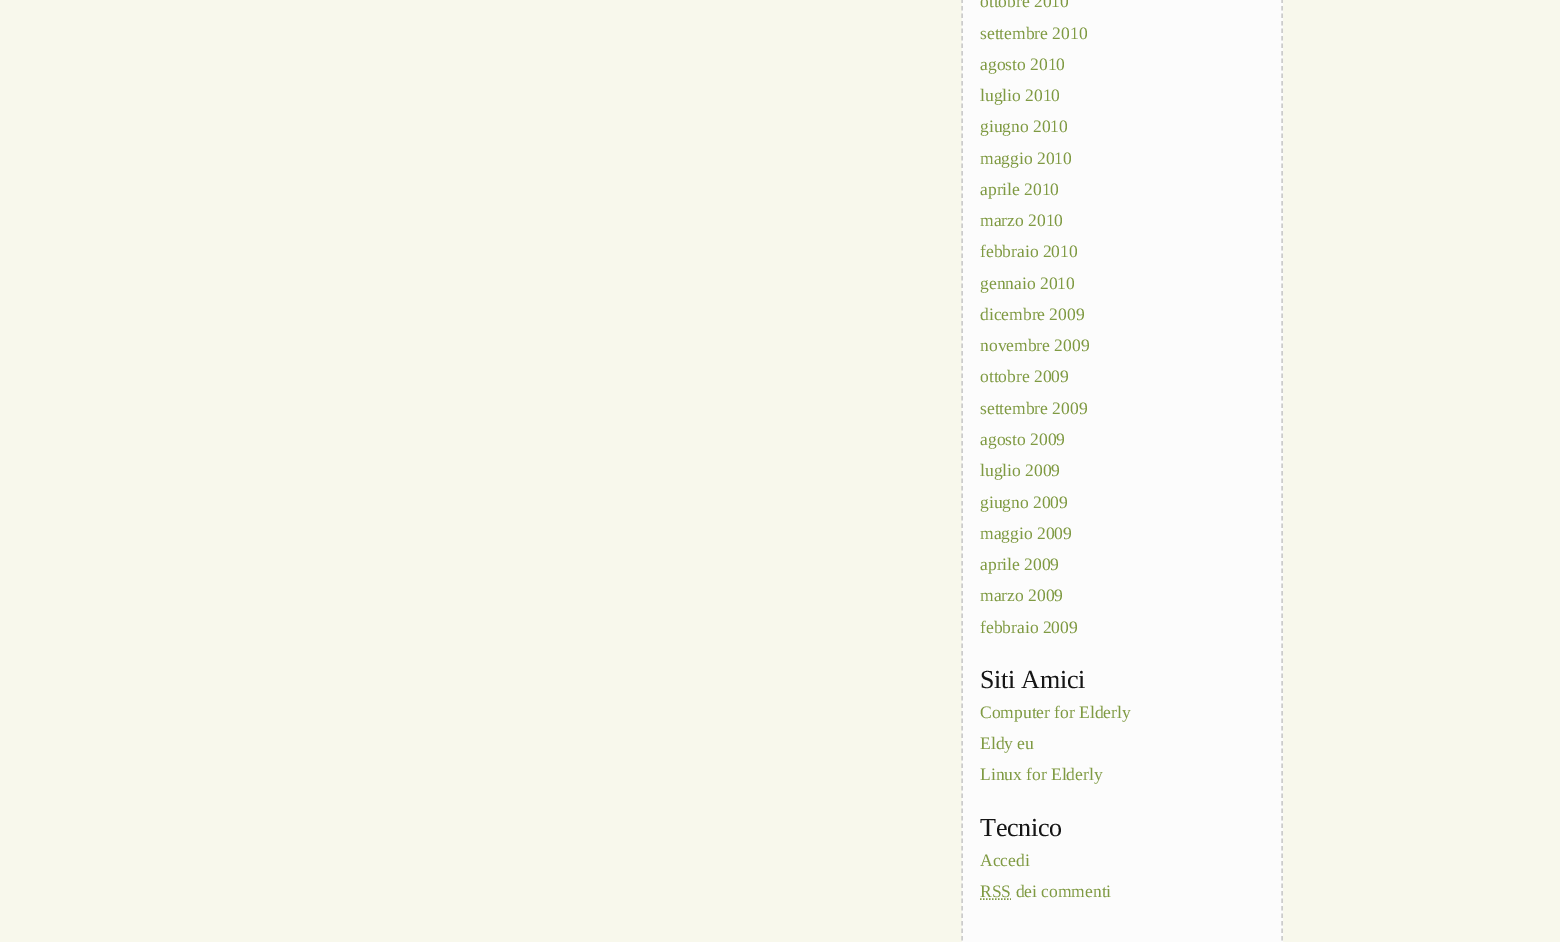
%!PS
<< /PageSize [1560 942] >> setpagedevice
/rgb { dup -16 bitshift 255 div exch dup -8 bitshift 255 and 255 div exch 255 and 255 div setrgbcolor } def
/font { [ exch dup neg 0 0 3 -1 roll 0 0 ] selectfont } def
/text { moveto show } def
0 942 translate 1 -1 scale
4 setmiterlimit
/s1 { /LiberationSerif-Regular 17.5 font 16#7F9A42 rgb } def
16#F8F8EC rgb
0 0 1560 942 rectfill
16#FCFCFC rgb
962 0 321 942 rectfill
16#CCCCCC rgb
1.5 setlinewidth
[4.5 3] 0 setdash
1282 -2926.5 moveto 1282 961.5 lineto stroke
962 -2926.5 moveto 962 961.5 lineto stroke
s1
(ottobre 2010) 980 7 text
(settembre 2010) 980 39 text
(agosto 2010) 980 70 text
(luglio 2010) 980 101 text
(giugno 2010) 980 132 text
(maggio 2010) 980 164 text
(aprile 2010) 980 195 text
(marzo 2010) 980 226 text
(febbraio 2010) 980 257 text
(gennaio 2010) 980 289 text
(dicembre 2009) 980 320 text
(novembre 2009) 980 351 text
(ottobre 2009) 980 382 text
(settembre 2009) 980 414 text
(agosto 2009) 980 445 text
(luglio 2009) 980 476 text
(giugno 2009) 980 508 text
(maggio 2009) 980 539 text
(aprile 2009) 980 570 text
(marzo 2009) 980 601 text
(febbraio 2009) 980 633 text
/LiberationSerif-Regular 26 font
16#151515 rgb
980 688 moveto -0.25 0 (Siti Amici) ashow
s1
(Computer for Elderly) 980 718 text
(Eldy eu) 980 749 text
(Linux for Elderly) 980 780 text
/LiberationSerif-Regular 26 font
16#151515 rgb
980 836 moveto -0.25 0 (Tecnico) ashow
s1
(Accedi) 980 866 text
(RSS dei commenti) 980 897 text
[1.5 1.5] 0 setdash
980 899 moveto 1011 899 lineto stroke
showpage
